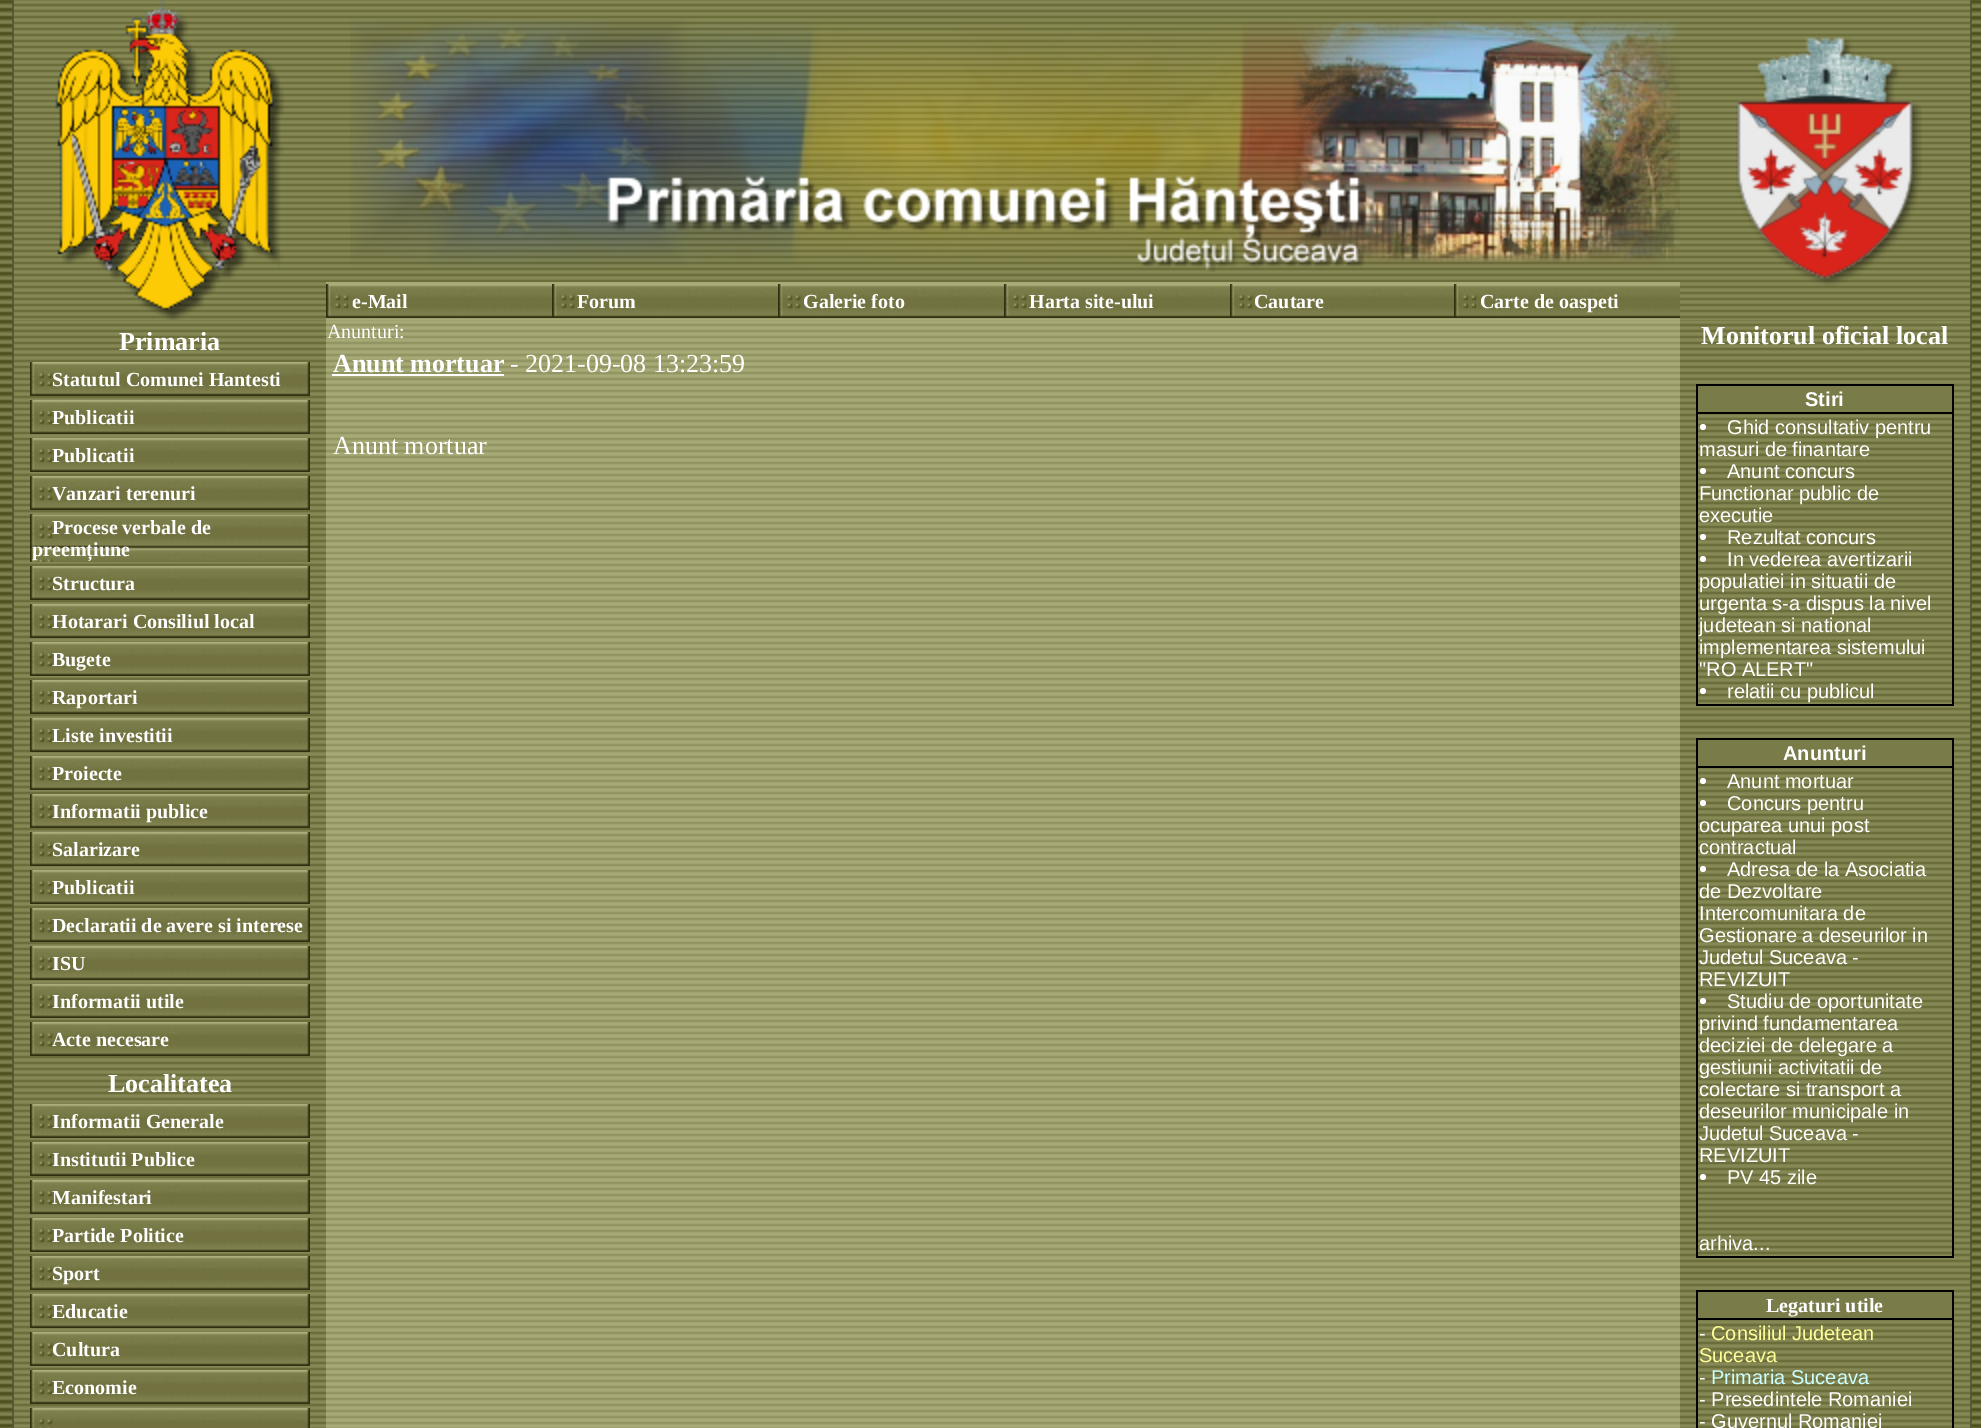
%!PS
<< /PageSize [1981 1428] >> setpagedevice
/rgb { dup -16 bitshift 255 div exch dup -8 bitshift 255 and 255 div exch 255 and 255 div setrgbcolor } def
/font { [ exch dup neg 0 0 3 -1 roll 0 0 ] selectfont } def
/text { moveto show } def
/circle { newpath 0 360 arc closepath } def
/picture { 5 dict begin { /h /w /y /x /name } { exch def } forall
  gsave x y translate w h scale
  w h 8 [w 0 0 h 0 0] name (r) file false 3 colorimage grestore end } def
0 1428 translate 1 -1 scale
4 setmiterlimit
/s1 { /LiberationSerif-Bold 20 font 16#FFFFFF rgb } def
/s2 { /LiberationSerif-Bold 26 font 16#FFFFFF rgb } def
/s3 { /LiberationSerif-Regular 20 font 16#FFFFFF rgb } def
/s4 { /LiberationSerif-Regular 26 font 16#FFFFFF rgb } def
/s5 { /LiberationSans-Bold 20 font 16#FFFFFF rgb } def
/s6 { /LiberationSans-Regular 20 font 16#FFFFFF rgb } def
/s7 { /LiberationSans-Regular 20 font 16#FFFF99 rgb } def
/s8 { /LiberationSans-Regular 20 font 16#CCFFFF rgb } def
16#FFFFFF rgb
0 0 1981 1428 rectfill
(pic1.raw) 0 0 1981 1428 picture
16#797B48 rgb
12 0 1960 1428 rectfill
(pic2.raw) 12 0 2 320 picture
(pic3.raw) 14 1 312 319 picture
(pic4.raw) 55 0 229 320 picture
(pic5.raw) 326 1 1354 281 picture
(pic6.raw) 350 19 1330 253 picture
(pic7.raw) 1680 1 290 319 picture
(pic8.raw) 1736 37 186 250 picture
(pic2.raw) 1970 0 2 320 picture
(pic9.raw) 326 282 1354 38 picture
(pic10.raw) 326 284 226 34 picture
s1
(e-Mail) 352 308 text
(pic10.raw) 552 284 226 34 picture
(Forum) 577 308 text
(pic10.raw) 778 284 226 34 picture
(Galerie foto) 803 308 text
(pic10.raw) 1004 284 226 34 picture
(Harta site-ului) 1029 308 text
(pic11.raw) 1230 284 224 34 picture
(Cautare) 1254 308 text
(pic12.raw) 1454 284 226 34 picture
(Carte de oaspeti) 1480 308 text
(pic13.raw) 12 320 2 1108 picture
(pic14.raw) 14 321 312 1106 picture
s2
(Primaria) 119 350 text
(pic15.raw) 30 362 280 34 picture
s1
(Statutul Comunei Hantesti) 52 386 text
(pic15.raw) 30 400 280 34 picture
(Publicatii) 52 424 text
(pic15.raw) 30 438 280 34 picture
(Publicatii) 52 462 text
(pic15.raw) 30 476 280 34 picture
(Vanzari terenuri) 52 500 text
(pic16.raw) 30 514 280 48 picture
(Procese verbale de) 52 534 text
(preemțiune) 32 556 text
(pic15.raw) 30 566 280 34 picture
(Structura) 52 590 text
(pic15.raw) 30 604 280 34 picture
(Hotarari Consiliul local) 52 628 text
(pic15.raw) 30 642 280 34 picture
(Bugete) 52 666 text
(pic15.raw) 30 680 280 34 picture
(Raportari) 52 704 text
(pic15.raw) 30 718 280 34 picture
(Liste investitii) 52 742 text
(pic15.raw) 30 756 280 34 picture
(Proiecte) 52 780 text
(pic15.raw) 30 794 280 34 picture
(Informatii publice) 52 818 text
(pic15.raw) 30 832 280 34 picture
(Salarizare) 52 856 text
(pic15.raw) 30 870 280 34 picture
(Publicatii) 52 894 text
(pic15.raw) 30 908 280 34 picture
(Declaratii de avere si interese) 52 932 text
(pic15.raw) 30 946 280 34 picture
(ISU) 52 970 text
(pic15.raw) 30 984 280 34 picture
(Informatii utile) 52 1008 text
(pic15.raw) 30 1022 280 34 picture
(Acte necesare) 52 1046 text
s2
(Localitatea) 108 1092 text
(pic15.raw) 30 1104 280 34 picture
s1
(Informatii Generale) 52 1128 text
(pic15.raw) 30 1142 280 34 picture
(Institutii Publice) 52 1166 text
(pic15.raw) 30 1180 280 34 picture
(Manifestari) 52 1204 text
(pic15.raw) 30 1218 280 34 picture
(Partide Politice) 52 1242 text
(pic15.raw) 30 1256 280 34 picture
(Sport) 52 1280 text
(pic15.raw) 30 1294 280 34 picture
(Educatie) 52 1318 text
(pic15.raw) 30 1332 280 34 picture
(Cultura) 52 1356 text
(pic15.raw) 30 1370 280 34 picture
(Economie) 52 1394 text
(pic17.raw) 30 1408 280 20 picture
(pic18.raw) 326 320 1354 1108 picture
s3
(Anunturi:) 327 338 text
s2
(Anunt mortuar) 333 372 text
332 374 172 2 rectfill
s4
(- 2021-09-08 13:23:59) 510 372 text
(Anunt mortuar) 333 454 text
(pic19.raw) 1680 321 290 1106 picture
s2
(Monitorul oficial local) 1701 344 text
16#000000 rgb
1696 384 258 322 rectfill
16#797B48 rgb
1698 386 254 26 rectfill
s5
(Stiri) 1805 406 text
16#797B48 rgb
1698 414 254 1 rectfill
(pic20.raw) 1698 415 254 289 picture
16#FFFFFF rgb
1703 427 3 circle fill
s6
(Ghid consultativ pentru) 1727 434 text
(masuri de finantare) 1699 456 text
1703 471 3 circle fill
(Anunt concurs) 1727 478 text
(Functionar public de) 1699 500 text
(executie) 1699 522 text
1703 537 3 circle fill
(Rezultat concurs) 1727 544 text
1703 559 3 circle fill
(In vederea avertizarii) 1727 566 text
(populatiei in situatii de) 1699 588 text
(urgenta s-a dispus la nivel) 1699 610 text
(judetean si national) 1699 632 text
(implementarea sistemului) 1699 654 text
("RO ALERT") 1699 676 text
1703 691 3 circle fill
(relatii cu publicul) 1727 698 text
16#000000 rgb
1696 738 258 520 rectfill
16#797B48 rgb
1698 740 254 26 rectfill
s5
(Anunturi) 1783 760 text
16#797B48 rgb
1698 768 254 1 rectfill
(pic21.raw) 1698 769 254 487 picture
16#FFFFFF rgb
1703 781 3 circle fill
s6
(Anunt mortuar) 1727 788 text
1703 803 3 circle fill
(Concurs pentru) 1727 810 text
(ocuparea unui post) 1699 832 text
(contractual) 1699 854 text
1703 869 3 circle fill
(Adresa de la Asociatia) 1727 876 text
(de Dezvoltare) 1699 898 text
(Intercomunitara de) 1699 920 text
(Gestionare a deseurilor in) 1699 942 text
(Judetul Suceava -) 1699 964 text
(REVIZUIT) 1699 986 text
1703 1001 3 circle fill
(Studiu de oportunitate) 1727 1008 text
(privind fundamentarea) 1699 1030 text
(deciziei de delegare a) 1699 1052 text
(gestiunii activitatii de) 1699 1074 text
(colectare si transport a) 1699 1096 text
(deseurilor municipale in) 1699 1118 text
(Judetul Suceava -) 1699 1140 text
(REVIZUIT) 1699 1162 text
1703 1177 3 circle fill
(PV 45 zile) 1727 1184 text
(arhiva...) 1699 1250 text
16#000000 rgb
1696 1290 258 138 rectfill
16#797B48 rgb
1698 1292 254 26 rectfill
s1
(Legaturi utile) 1766 1312 text
16#797B48 rgb
1698 1320 254 1 rectfill
(pic22.raw) 1698 1321 254 107 picture
s6
(-) 1699 1340 text
s7
(Consiliul Judetean) 1711 1340 text
(Suceava) 1699 1362 text
s6
(-) 1699 1384 text
s8
(Primaria Suceava) 1711 1384 text
s6
(- Presedintele Romaniei) 1699 1406 text
(- Guvernul Romaniei) 1699 1428 text
(pic13.raw) 1970 320 2 1108 picture
showpage
